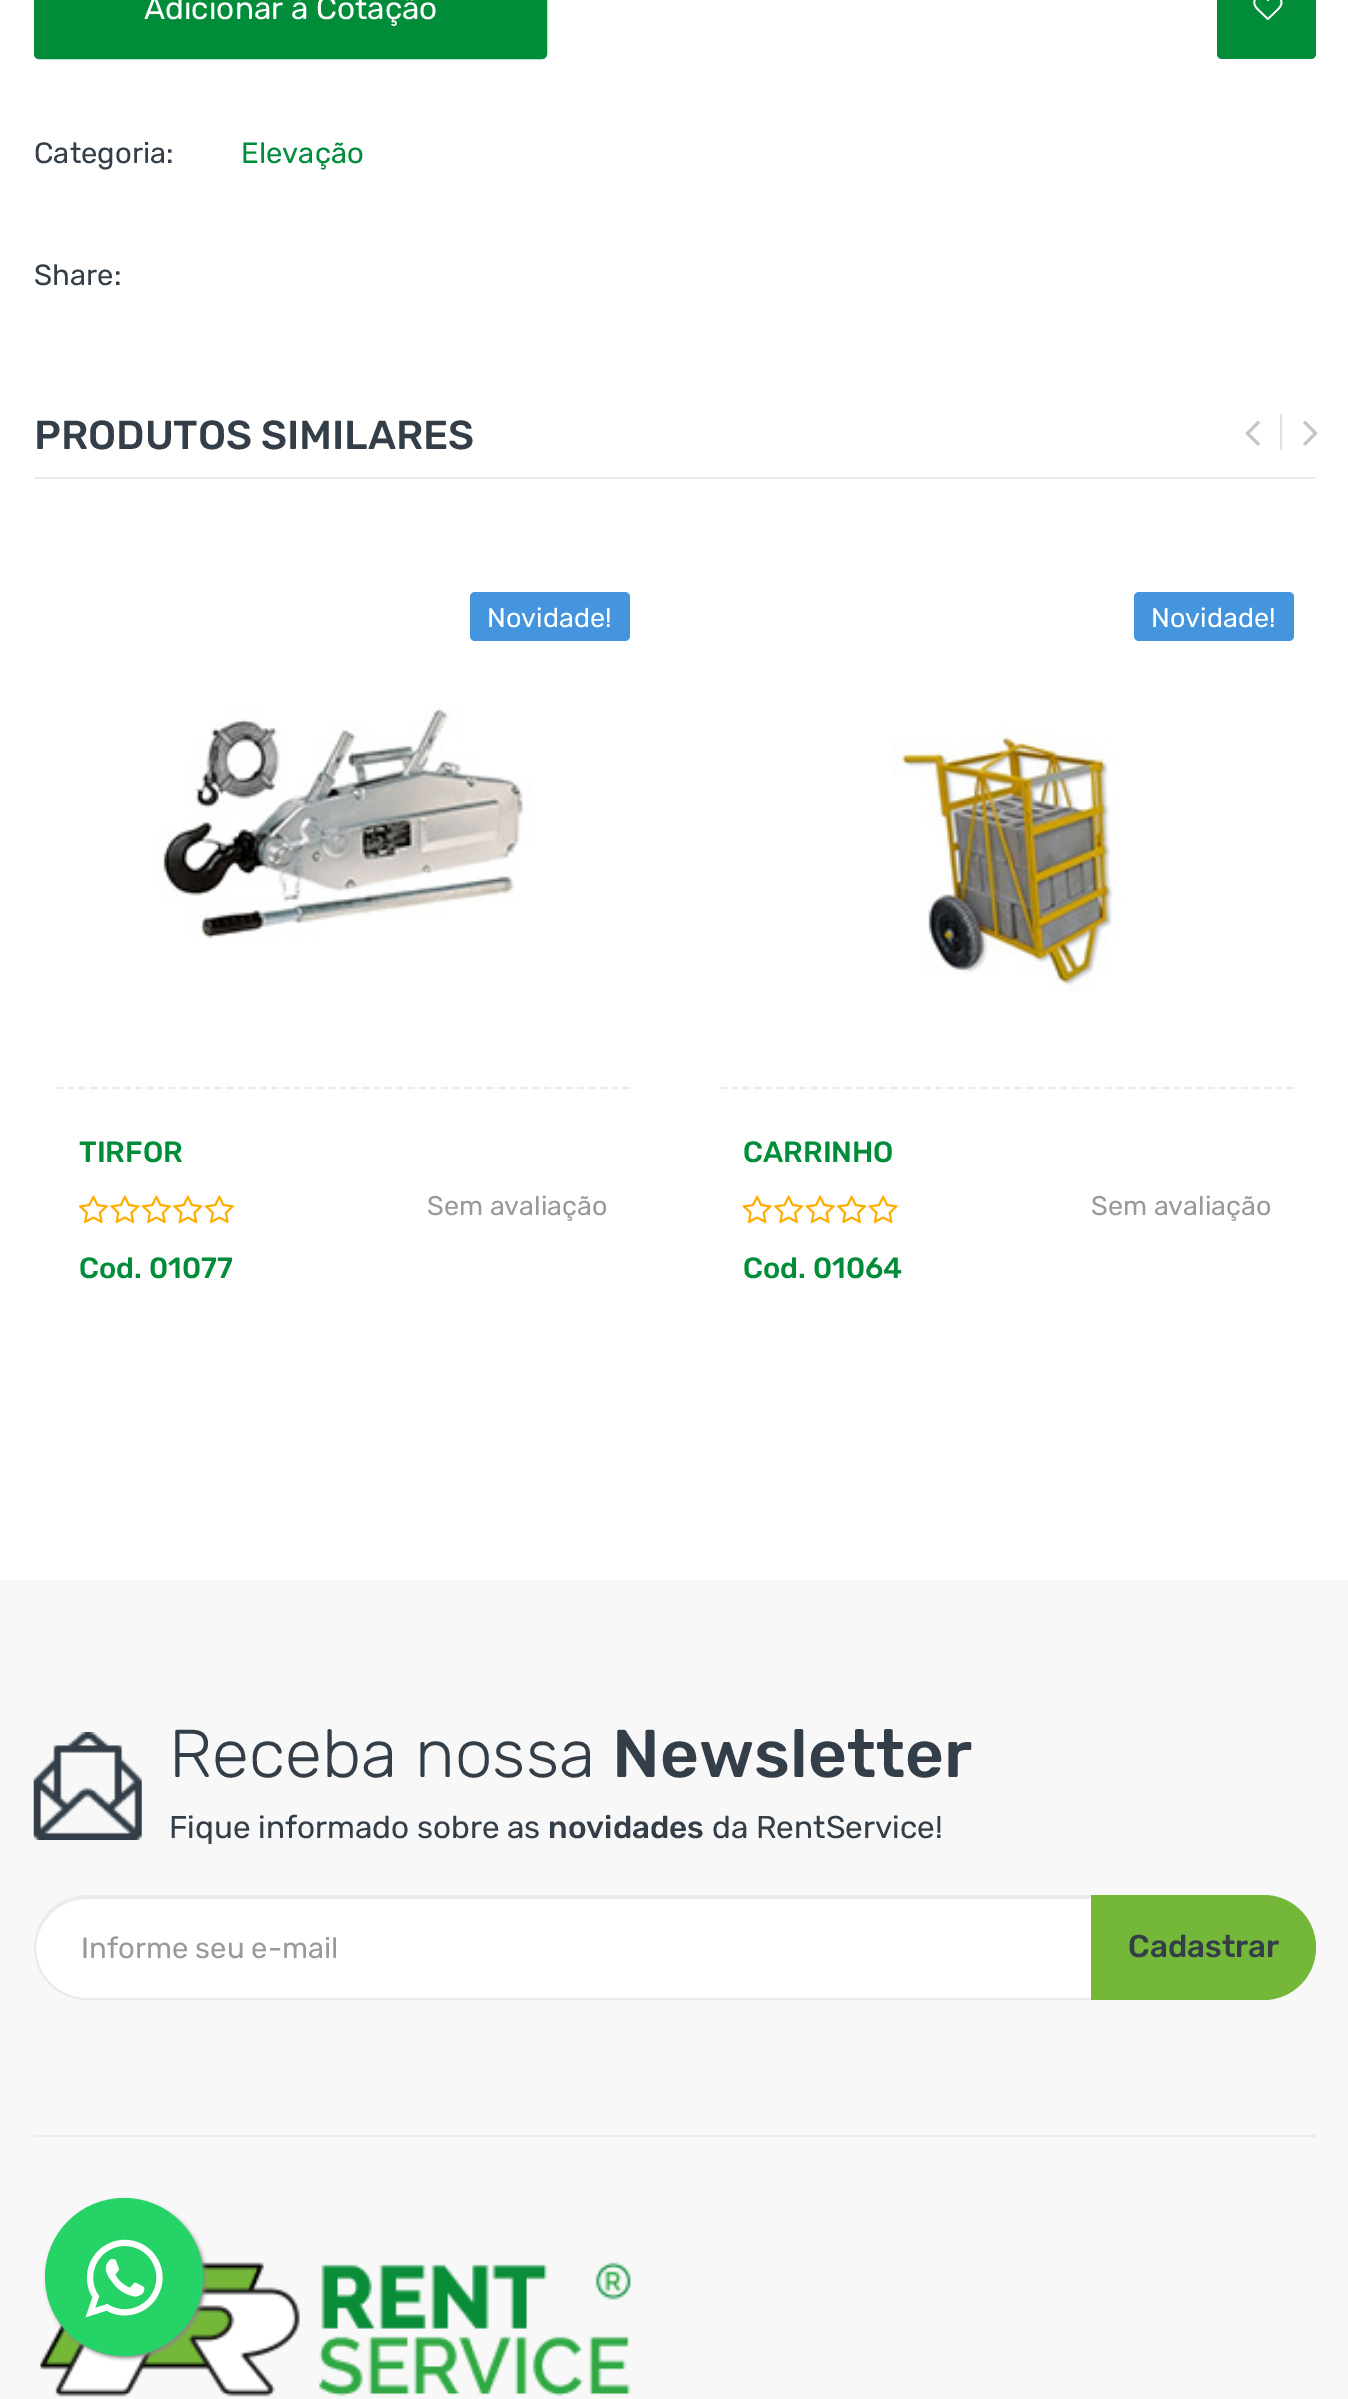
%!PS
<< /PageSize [1348 2399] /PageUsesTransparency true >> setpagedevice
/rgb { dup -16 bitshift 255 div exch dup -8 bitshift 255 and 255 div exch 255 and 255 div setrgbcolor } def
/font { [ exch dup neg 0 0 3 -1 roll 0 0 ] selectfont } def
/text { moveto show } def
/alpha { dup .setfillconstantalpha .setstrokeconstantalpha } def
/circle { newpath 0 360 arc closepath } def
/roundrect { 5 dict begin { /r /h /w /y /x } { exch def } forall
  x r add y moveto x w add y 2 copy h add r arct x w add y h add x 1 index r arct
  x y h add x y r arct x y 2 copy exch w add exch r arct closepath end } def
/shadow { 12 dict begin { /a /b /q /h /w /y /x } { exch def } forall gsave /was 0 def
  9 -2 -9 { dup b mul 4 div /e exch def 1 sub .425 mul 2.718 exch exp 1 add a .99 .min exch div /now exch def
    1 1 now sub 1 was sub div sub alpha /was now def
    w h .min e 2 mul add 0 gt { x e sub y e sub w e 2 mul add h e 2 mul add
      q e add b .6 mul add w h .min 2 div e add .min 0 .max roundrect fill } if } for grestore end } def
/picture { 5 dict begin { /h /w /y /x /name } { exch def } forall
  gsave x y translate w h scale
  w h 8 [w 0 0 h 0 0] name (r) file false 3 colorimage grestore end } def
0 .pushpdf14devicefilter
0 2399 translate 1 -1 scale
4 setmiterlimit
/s1 { /Rubik-Regular 31.5 font 16#FFFFFF rgb } def
/s2 { /Rubik-Regular 29.25 font 16#333E48 rgb } def
/s3 { /Rubik-Regular 29.25 font 16#008C39 rgb } def
/s4 { /Rubik-Medium 40.5 font 16#333E48 rgb } def
/s5 { /Rubik-Regular 27 font 16#FFFFFF rgb } def
/s6 { /Rubik-Medium 29.25 font 16#008C39 rgb } def
/s7 { /Rubik-Regular 27 font 16#999999 rgb } def
/s8 { /Rubik-Light 67.5 font 16#333E48 rgb } def
/s9 { /Rubik-Medium 67.5 font 16#333E48 rgb } def
/s10 { /Rubik-Regular 31.5 font 16#333E48 rgb } def
/s11 { /Rubik-Medium 31.5 font 16#333E48 rgb } def
/s12 { /Rubik-Regular 29.25 font 16#999999 rgb } def
16#FFFFFF rgb
0 0 1348 2399 rectfill
16#008C39 rgb
36.5 -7.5 508 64 2.5 roundrect gsave fill grestore
5 setlinewidth
stroke
s1
(Adicionar á Cotação) 144 19 text
16#008C39 rgb
1217 -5 99 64 5 roundrect fill
(pic1.raw) 1253 0 30 21 picture
s2
(Categoria:) 34 163 text
s3
(Elevação) 241 163 text
s2
(Share:) 34 285 text
16#EBEBEB rgb
34 477 1282 2 rectfill
s4
(PRODUTOS SIMILARES) 34 449 text
16#E1E1E1 rgb
1280 414 2 36 rectfill
(pic2.raw) 1245 420 15 26 picture
(pic3.raw) 1303 420 15 26 picture
16#4495DD rgb
470 592 160 49 5 roundrect fill
s5
(Novidade!) 487 627 text
(pic4.raw) 157 706 376 233 picture
16#EBEBEB rgb
2.2 setlinewidth
[6.75 4.59] 0 setdash
56 1088 moveto 630 1088 lineto stroke
s6
(TIRFOR) 79 1162 text
(pic5.raw) 78 1195 30 29 picture
(pic6.raw) 110 1195 30 29 picture
(pic5.raw) 141 1195 30 29 picture
(pic6.raw) 173 1195 30 29 picture
(pic5.raw) 204 1195 30 29 picture
s7
(Sem avaliação) 427 1215 text
s6
(Cod. 01077) 79 1278 text
16#4495DD rgb
1134 592 160 49 5 roundrect fill
s5
(Novidade!) 1151 627 text
(pic7.raw) 891 727 230 265 picture
16#EBEBEB rgb
720 1088 moveto 1294 1088 lineto stroke
s6
(CARRINHO) 743 1162 text
(pic8.raw) 742 1195 30 29 picture
(pic9.raw) 774 1195 30 29 picture
(pic8.raw) 805 1195 30 29 picture
(pic9.raw) 837 1195 30 29 picture
(pic8.raw) 868 1195 30 29 picture
s7
(Sem avaliação) 1091 1215 text
s6
(Cod. 01064) 743 1278 text
16#F8F8F8 rgb
0 1580 1348 819 rectfill
16#EBEBEB rgb
34 2135 1282 2 rectfill
(pic10.raw) 33 1732 109 108 picture
s8
(Receba nossa) 169 1777 text
s9
(Newsletter) 612 1777 text
s10
(Fique informado sobre as) 169 1838 text
s11
(novidades) 548 1838 text
s10
(da RentService!) 712 1838 text
16#FFFFFF rgb
34 1895 1282 105 52.5 roundrect fill
16#ECECEC rgb
87 1899 moveto 1263 1899 lineto 1291 1899 1313 1921 1314 1949 curveto 1315 1925 1297 1903 1274 1898 curveto 1264 1897 lineto 86 1897 lineto 58 1897 35 1921 36 1949 curveto 37 1921 59 1899 87 1899 curveto closepath fill
16#EBEBEB rgb
2 setlinewidth
[] 0 setdash
35 1896 1280 103 51.5 roundrect stroke
s12
(Informe seu e-mail) 81 1958 text
16#75B839 rgb
1091 1895 moveto 1263.5 1895 lineto 1292.5 1895 1316 1918.5 1316 1947.5 curveto 1316 1976.5 1292.5 2000 1263.5 2000 curveto 1091 2000 lineto closepath fill
s11
(Cadastrar) 1128 1957 text
(pic12.raw) 40 2262 591 135 picture
16#888888 rgb
47 2201 158 157 78.5 2 1 shadow
16#25D366 rgb
124 2277 79 circle fill
(pic11.raw) 85 2239 78 79 picture
.poppdf14devicefilter showpage
